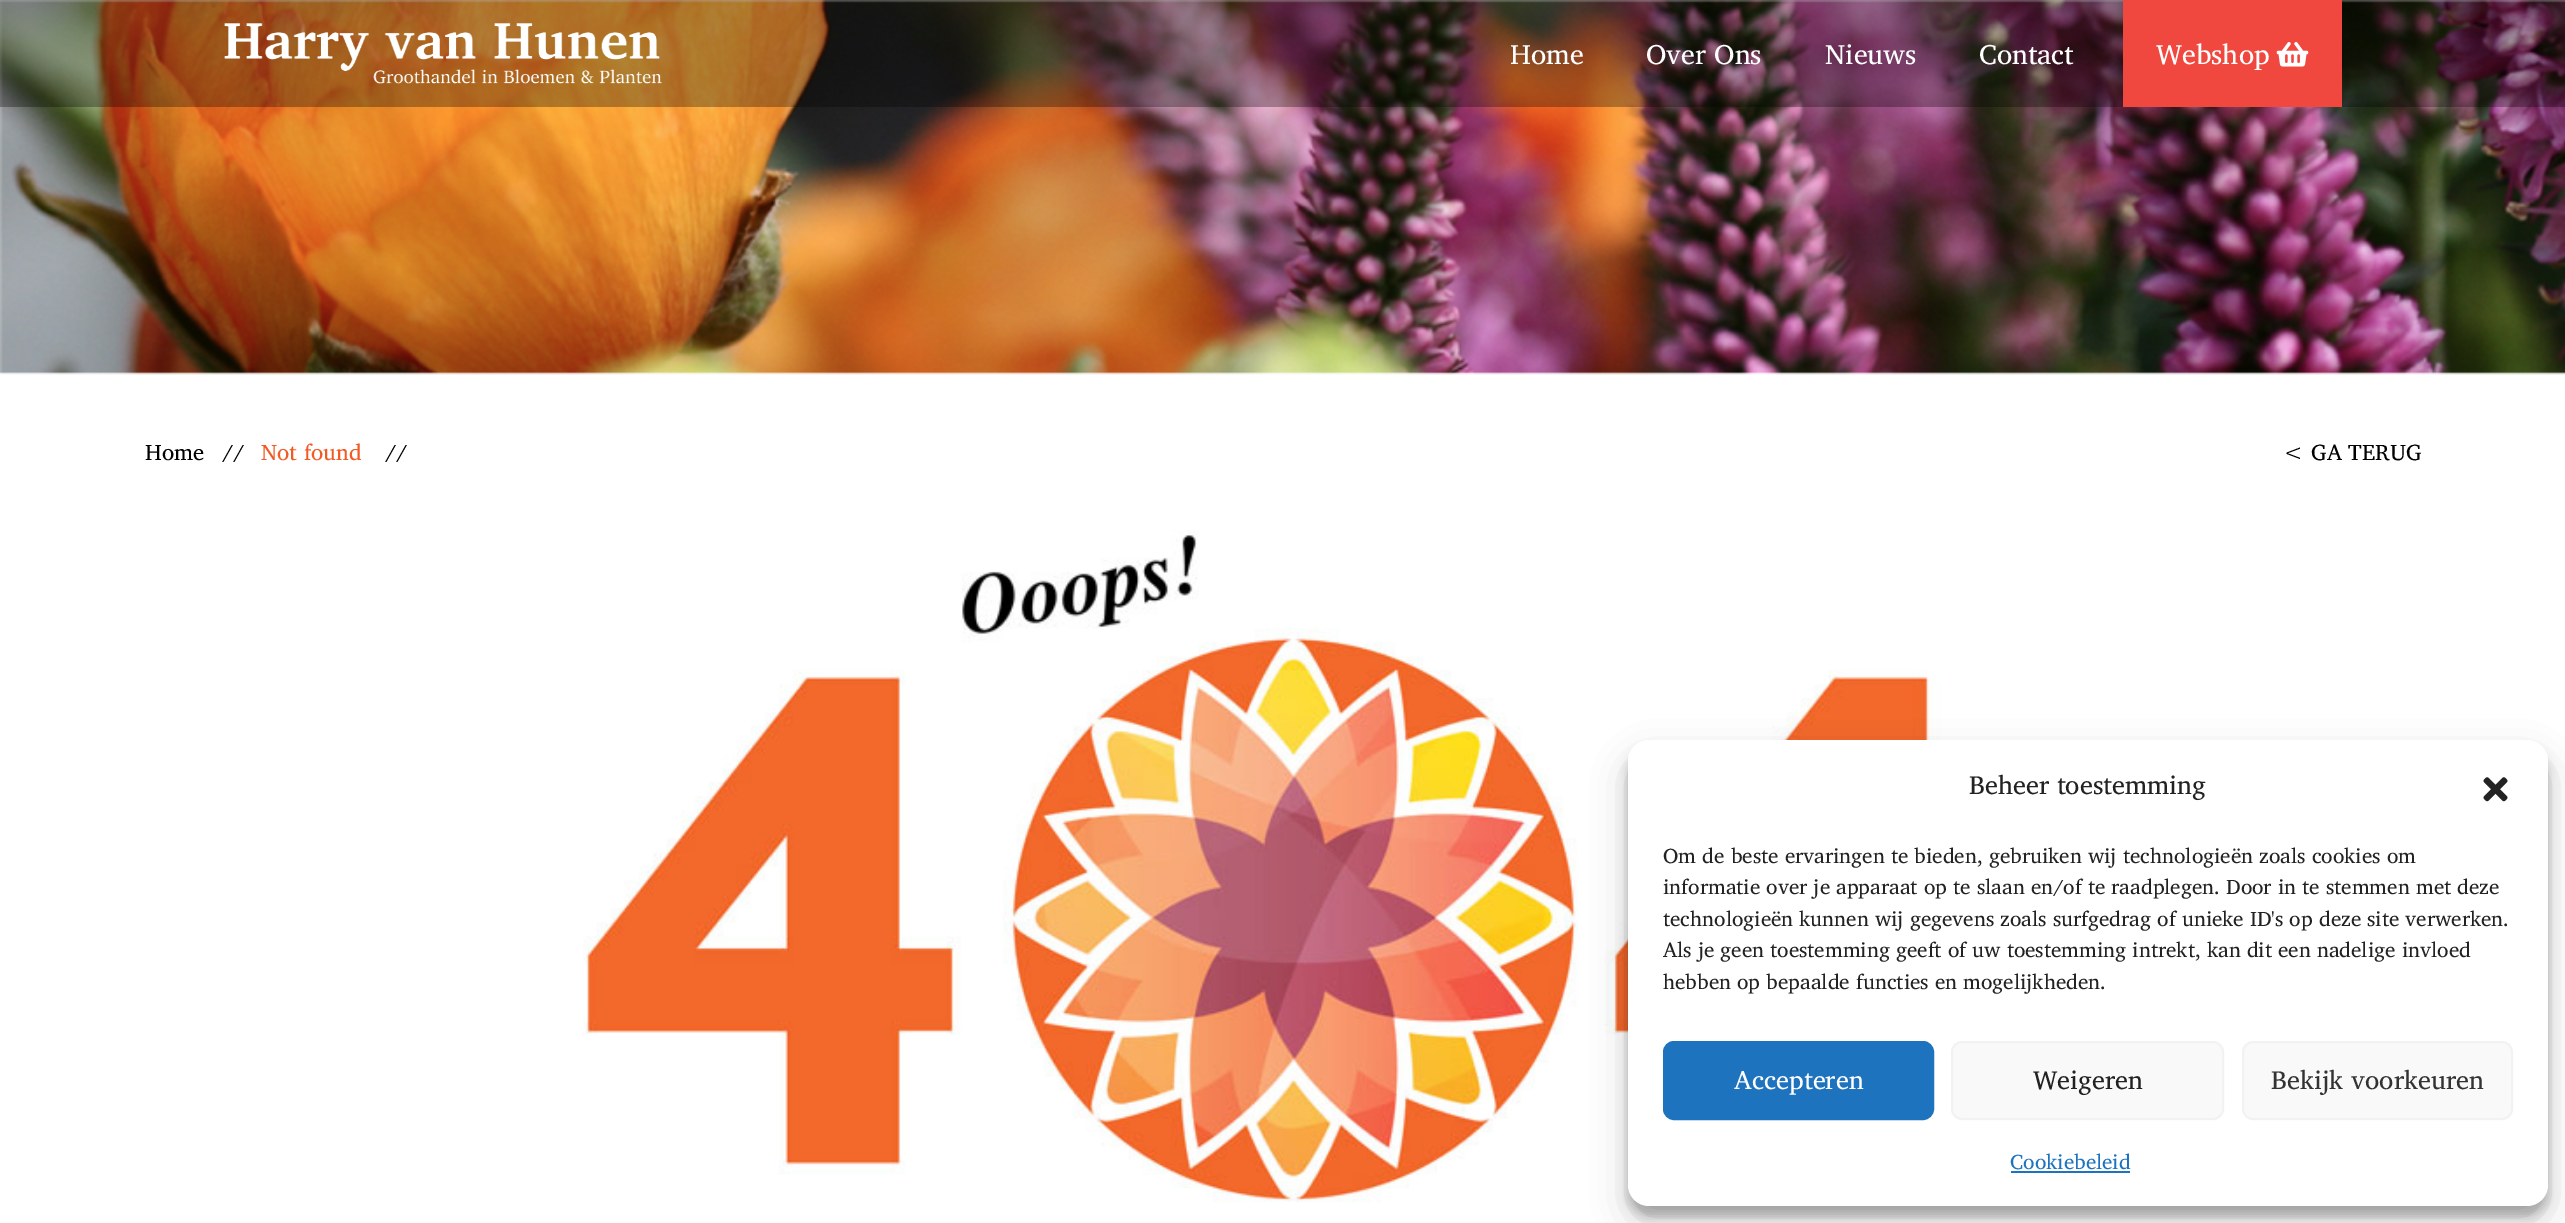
%!PS
<< /PageSize [2565 1223] /PageUsesTransparency true >> setpagedevice
/rgb { dup -16 bitshift 255 div exch dup -8 bitshift 255 and 255 div exch 255 and 255 div setrgbcolor } def
/font { [ exch dup neg 0 0 3 -1 roll 0 0 ] selectfont } def
/text { moveto show } def
/alpha { dup .setfillconstantalpha .setstrokeconstantalpha } def
/roundrect { 5 dict begin { /r /h /w /y /x } { exch def } forall
  x r add y moveto x w add y 2 copy h add r arct x w add y h add x 1 index r arct
  x y h add x y r arct x y 2 copy exch w add exch r arct closepath end } def
/shadow { 12 dict begin { /a /b /q /h /w /y /x } { exch def } forall gsave /was 0 def
  9 -2 -9 { dup b mul 4 div /e exch def 1 sub .425 mul 2.718 exch exp 1 add a .99 .min exch div /now exch def
    1 1 now sub 1 was sub div sub alpha /was now def
    w h .min e 2 mul add 0 gt { x e sub y e sub w e 2 mul add h e 2 mul add
      q e add b .6 mul add w h .min 2 div e add .min 0 .max roundrect fill } if } for grestore end } def
/picture { 5 dict begin { /h /w /y /x /name } { exch def } forall
  gsave x y translate w h scale
  w h 8 [w 0 0 h 0 0] name (r) file false 3 colorimage grestore end } def
0 .pushpdf14devicefilter
0 1223 translate 1 -1 scale
4 setmiterlimit
/s1 { /CharisSIL-Regular 28 font 16#FFFFFF rgb } def
/s2 { /CharisSIL-Regular 22.5 font 16#000000 rgb } def
/s3 { /CharisSIL-Regular 22.5 font 16#F15A24 rgb } def
/s4 { /CharisSIL-Regular 26.25 font 16#222222 rgb } def
/s5 { /CharisSIL-Regular 21 font 16#222222 rgb } def
/s6 { /CharisSIL-Regular 26.25 font 16#FFFFFF rgb } def
/s7 { /CharisSIL-Regular 26.25 font 16#333333 rgb } def
/s8 { /CharisSIL-Regular 21 font 16#1E73BE rgb } def
16#FFFFFF rgb
0 0 2565 1223 rectfill
(pic1.raw) 0 0 2565 375 picture
0.3 alpha
16#000000 rgb
0 0 2565 107 rectfill
1 alpha
(pic2.raw) 224 23 438 61 picture
s1
(Home) 1510 64 text
(Over Ons) 1646 64 text
(Nieuws) 1825 64 text
(Contact) 1979 64 text
16#F0483E rgb
2123 0 219 107 rectfill
s1
(Webshop) 2156 64 text
(pic3.raw) 2276 42 33 25 picture
s2
(Home) 145 460 text
(//) 222 460 text
s3
(Not found) 261 460 text
s2
(//) 385 460 text
(< GA TERUG) 2282 460 text
(pic4.raw) 583 530 1400 673 picture
1628 751 920 465 21 5 0.23 shadow
1628 758 920 465 21 17.5 0.19 shadow
16#FFFFFF rgb
1628 740 920 466 21 roundrect fill
s4
(Beheer toestemming) 1969 794 text
(pic5.raw) 2483 777 25 25 picture
s5
(Om de beste ervaringen te bieden, gebruiken wij technologieën zoals cookies om) 1663 863 text
(informatie over je apparaat op te slaan en/of te raadplegen. Door in te stemmen met deze) 1663 894 text
(technologieën kunnen wij gegevens zoals surfgedrag of unieke ID's op deze site verwerken.) 1663 926 text
(Als je geen toestemming geeft of uw toestemming intrekt, kan dit een nadelige invloed) 1663 957 text
(hebben op bepaalde functies en mogelijkheden.) 1663 989 text
16#1E73BE rgb
1664 1042 269 77 10 roundrect gsave fill grestore
2 setlinewidth
stroke
s6
(Accepteren) 1734 1089 text
16#F9F9F9 rgb
1952 1042 271 77 10 roundrect gsave fill grestore
16#F2F2F2 rgb
stroke
s4
(Weigeren) 2033 1089 text
16#F9F9F9 rgb
2243 1042 269 77 10 roundrect gsave fill grestore
16#F2F2F2 rgb
stroke
s7
(Bekijk voorkeuren) 2271 1089 text
s8
(Cookiebeleid) 2010 1169 text
2011 1171 119 2 rectfill
.poppdf14devicefilter showpage
